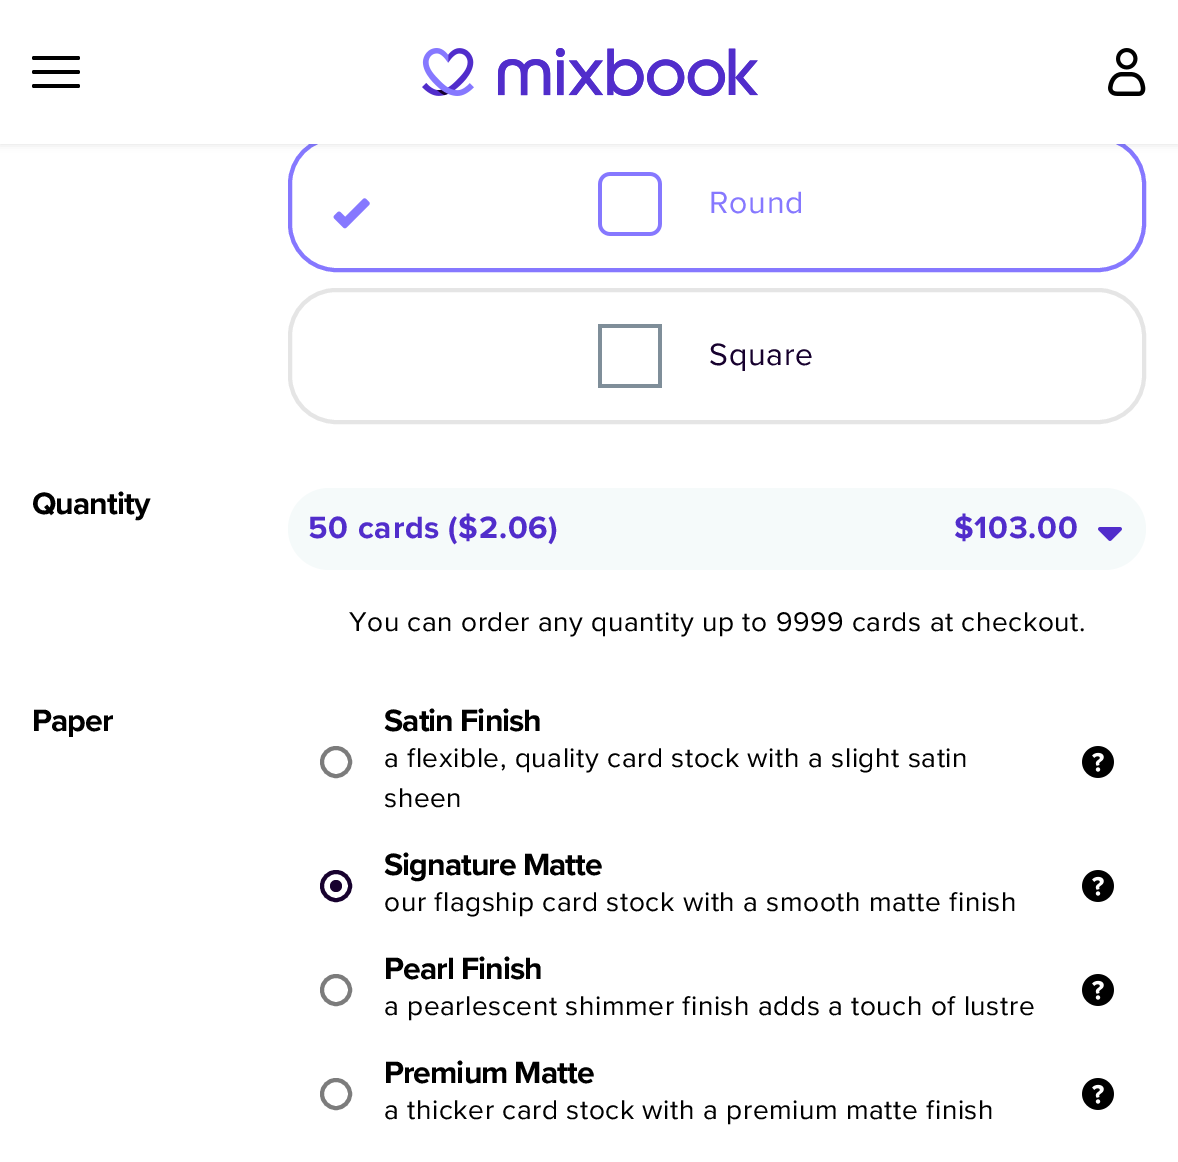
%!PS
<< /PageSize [1178 1162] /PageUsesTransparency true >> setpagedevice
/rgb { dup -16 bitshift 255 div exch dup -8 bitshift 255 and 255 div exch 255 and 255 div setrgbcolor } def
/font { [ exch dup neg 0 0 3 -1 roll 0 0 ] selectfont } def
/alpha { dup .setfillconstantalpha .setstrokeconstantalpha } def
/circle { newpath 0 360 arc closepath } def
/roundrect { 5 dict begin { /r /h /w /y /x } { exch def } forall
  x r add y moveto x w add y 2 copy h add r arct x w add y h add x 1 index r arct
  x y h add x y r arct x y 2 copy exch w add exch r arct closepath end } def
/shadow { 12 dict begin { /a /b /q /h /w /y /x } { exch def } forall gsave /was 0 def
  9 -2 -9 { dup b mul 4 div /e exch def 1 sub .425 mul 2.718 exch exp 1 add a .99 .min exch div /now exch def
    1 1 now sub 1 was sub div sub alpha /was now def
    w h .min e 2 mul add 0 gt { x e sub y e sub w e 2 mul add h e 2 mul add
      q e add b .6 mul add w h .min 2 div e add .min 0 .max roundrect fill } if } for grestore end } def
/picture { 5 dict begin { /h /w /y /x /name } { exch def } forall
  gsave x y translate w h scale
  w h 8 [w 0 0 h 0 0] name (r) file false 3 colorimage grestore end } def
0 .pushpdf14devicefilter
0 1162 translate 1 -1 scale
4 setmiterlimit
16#FFFFFF rgb
0 0 1178 1162 rectfill
16#8678FF rgb
4 setlinewidth
290 138 854 132 46 roundrect stroke
16#000000 rgb
0 0 1178 144 0 4 0.12 shadow
16#FFFFFF rgb
0 0 1178 144 rectfill
16#000000 rgb
32 56 48 4 2 roundrect fill
32 70 48 4 2 roundrect fill
32 84 48 4 2 roundrect fill
(pic1.raw) 422 48 336 48 picture
(pic2.raw) 1108 48 38 48 picture
(pic3.raw) 333 198 37 31 picture
(pic4.raw) 598 172 64 64 picture
/ProximaNova-Regular 32 font
16#8678FF rgb
709 213 moveto 0.75 0 (Round) ashow
16#E5E5E5 rgb
290 290 854 132 46 roundrect stroke
16#7F8E99 rgb
602 328 moveto 602 384 lineto 658 384 lineto 658 328 lineto closepath 598 324 moveto 662 324 lineto 662 388 lineto 598 388 lineto closepath fill
16#17012E rgb
709 365 moveto 0.75 0 (Square) ashow
/ProximaNova-Bold 32 font
16#000000 rgb
32 514 moveto -1 0 (Quantity) ashow
16#F5FAFA rgb
288 488 858 82 41 roundrect fill
16#512DCB rgb
308 538 moveto 0.75 0 (50 cards) ashow
448 538 moveto 0.75 0 (\($2.06\)) ashow
954 538 moveto 0.75 0 ($103.00) ashow
(pic5.raw) 1098 527 24 14 picture
/ProximaNova-Regular 28 font
16#000000 rgb
349 631 moveto 0.58 0 (You can order any quantity up to 9999 cards at checkout.) ashow
/ProximaNova-Bold 32 font
32 731 moveto -1 0 (Paper) ashow
16#7C7C7C rgb
336 762 14 circle stroke
16#000000 rgb
384 731 moveto -1 0 (Satin Finish) ashow
/ProximaNova-Regular 28 font
384 767 moveto 0.58 0 (a flexible, quality card stock with a slight satin) ashow
384 807 moveto 0.58 0 (sheen) ashow
(pic6.raw) 1082 746 32 32 picture
16#17012E rgb
336 886 14 circle stroke
336 886 6 circle fill
/ProximaNova-Bold 32 font
16#000000 rgb
384 875 moveto -1 0 (Signature Matte) ashow
/ProximaNova-Regular 28 font
384 911 moveto 0.58 0 (our flagship card stock with a smooth matte finish) ashow
(pic6.raw) 1082 870 32 32 picture
16#7C7C7C rgb
336 990 14 circle stroke
/ProximaNova-Bold 32 font
16#000000 rgb
384 979 moveto -1 0 (Pearl Finish) ashow
/ProximaNova-Regular 28 font
384 1015 moveto 0.58 0 (a pearlescent shimmer finish adds a touch of lustre) ashow
(pic6.raw) 1082 974 32 32 picture
16#7C7C7C rgb
336 1094 14 circle stroke
/ProximaNova-Bold 32 font
16#000000 rgb
384 1083 moveto -1 0 (Premium Matte) ashow
/ProximaNova-Regular 28 font
384 1119 moveto 0.58 0 (a thicker card stock with a premium matte finish) ashow
(pic6.raw) 1082 1078 32 32 picture
.poppdf14devicefilter showpage
